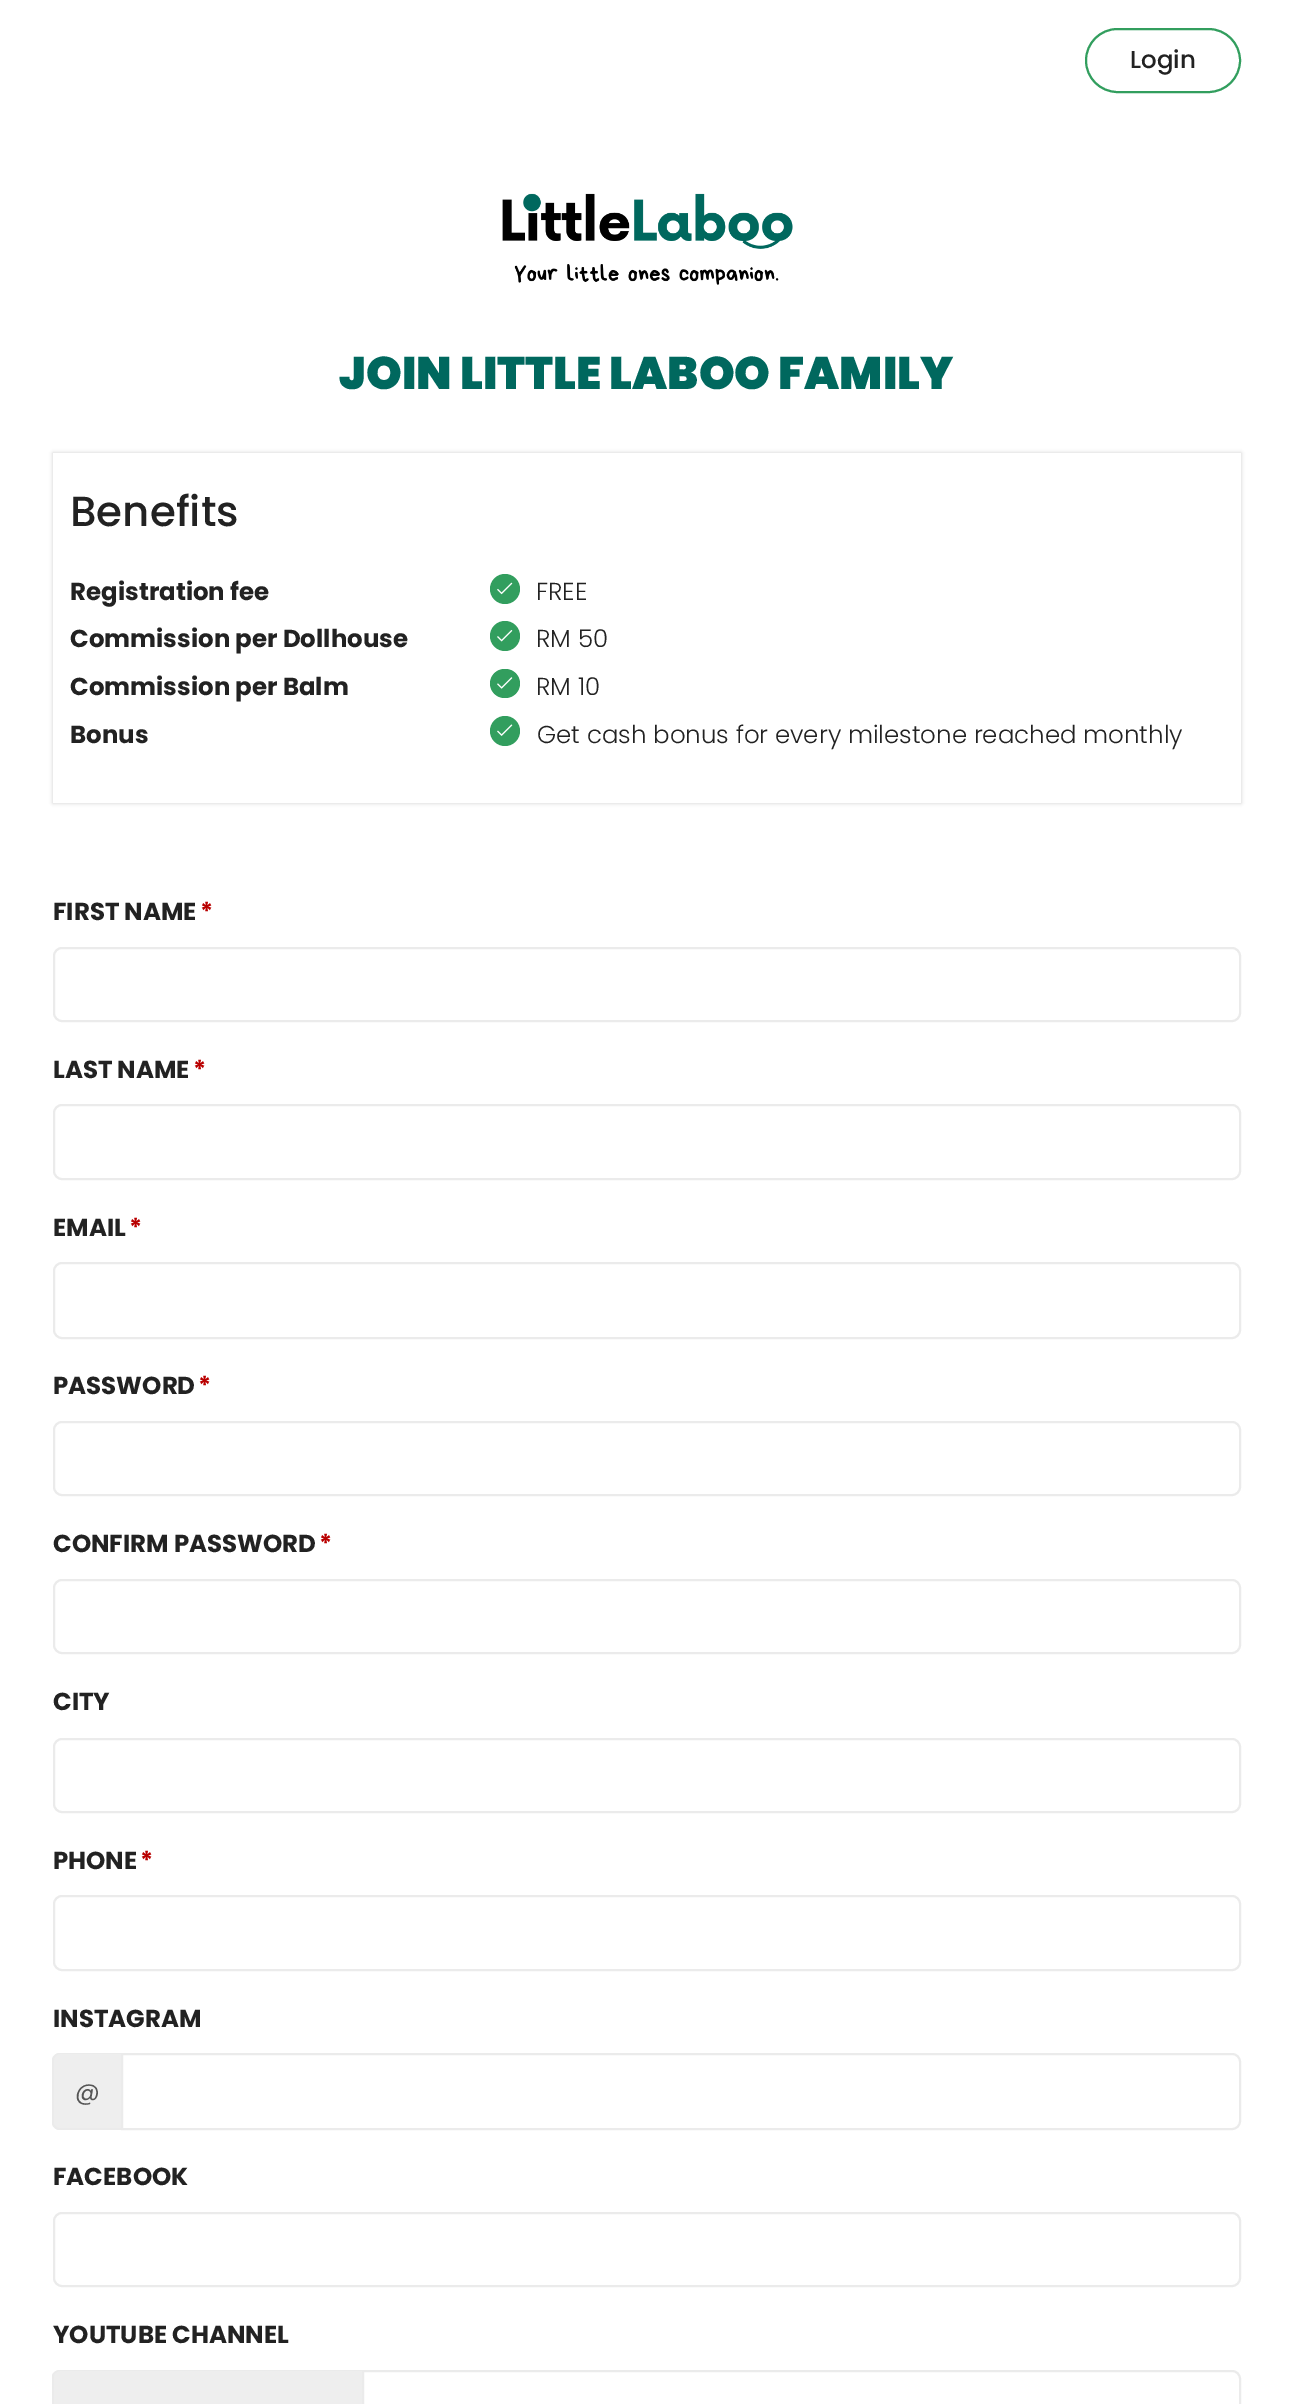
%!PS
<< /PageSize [1293 2404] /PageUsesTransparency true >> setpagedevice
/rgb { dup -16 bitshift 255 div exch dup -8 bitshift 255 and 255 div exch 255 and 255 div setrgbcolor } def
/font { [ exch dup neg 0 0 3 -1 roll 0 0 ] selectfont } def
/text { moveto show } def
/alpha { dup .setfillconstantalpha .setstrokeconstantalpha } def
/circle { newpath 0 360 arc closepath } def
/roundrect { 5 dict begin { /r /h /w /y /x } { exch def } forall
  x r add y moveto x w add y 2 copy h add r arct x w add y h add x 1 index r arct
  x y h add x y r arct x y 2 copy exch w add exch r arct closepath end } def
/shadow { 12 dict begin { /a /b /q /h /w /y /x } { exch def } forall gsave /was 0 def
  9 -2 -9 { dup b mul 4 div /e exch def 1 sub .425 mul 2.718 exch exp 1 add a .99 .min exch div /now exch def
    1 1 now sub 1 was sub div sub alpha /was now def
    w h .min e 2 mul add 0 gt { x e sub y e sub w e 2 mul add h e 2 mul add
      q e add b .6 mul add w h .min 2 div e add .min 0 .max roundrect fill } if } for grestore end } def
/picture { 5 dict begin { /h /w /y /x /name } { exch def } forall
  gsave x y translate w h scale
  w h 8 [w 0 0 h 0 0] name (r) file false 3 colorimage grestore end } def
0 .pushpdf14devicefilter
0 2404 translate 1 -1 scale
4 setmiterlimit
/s1 { /Poppins-Medium 24.5 font 16#222222 rgb } def
/s2 { /Poppins-Black 45.5 font 16#00685E rgb } def
/s3 { /Poppins-Medium 42 font 16#222222 rgb } def
/s4 { /Poppins-Bold 24.5 font 16#222222 rgb } def
/s5 { /Poppins-Light 24.5 font 16#222222 rgb } def
/s6 { /Poppins-Bold 24.5 font 16#B90000 rgb } def
/s7 { /Poppins-Regular 24.5 font 16#555555 rgb } def
16#FFFFFF rgb
0 0 1293 2404 rectfill
16#329E5E rgb
2 setlinewidth
1086 29 154 63 31.5 roundrect stroke
s1
(Login) 1130 68 text
(pic1.raw) 502 193 291 92 picture
s2
(JOIN LITTLE LABOO FAMILY) 339 389 text
16#CCCCCC rgb
53 453 1188 350 0 2 1 shadow
16#FFFFFF rgb
53 453 1188 350 rectfill
s3
(Benefits) 70 526 text
s4
(Registration fee) 70 600 text
16#329E5E rgb
505 589 15 circle fill
(pic2.raw) 497 582 16 13 picture
s5
(FREE) 536 600 text
s4
(Commission per Dollhouse) 70 647 text
16#329E5E rgb
505 636 15 circle fill
(pic3.raw) 497 630 16 12 picture
s5
(RM 50) 536 647 text
s4
(Commission per Balm) 70 695 text
16#329E5E rgb
490 669 30 29 14.5 roundrect fill
(pic4.raw) 497 677 16 12 picture
s5
(RM 10) 536 695 text
s4
(Bonus) 70 743 text
16#329E5E rgb
505 731 15 circle fill
(pic5.raw) 497 724 16 12 picture
s5
(Get cash bonus for every milestone reached monthly) 537 743 text
s4
(FIRST NAME) 53 920 text
s6
(*) 200 920 text
16#EBEBEB rgb
54 948 1186 73 8 roundrect stroke
s4
(LAST NAME) 53 1078 text
s6
(*) 193 1078 text
16#EBEBEB rgb
54 1105 1186 74 8 roundrect stroke
s4
(EMAIL) 53 1236 text
s6
(*) 129 1236 text
16#EBEBEB rgb
54 1263 1186 75 8 roundrect stroke
s4
(PASSWORD) 53 1394 text
s6
(*) 198 1394 text
16#EBEBEB rgb
54 1422 1186 73 8 roundrect stroke
s4
(CONFIRM PASSWORD) 53 1552 text
s6
(*) 319 1552 text
16#EBEBEB rgb
54 1580 1186 73 8 roundrect stroke
s4
(CITY) 53 1710 text
16#EBEBEB rgb
54 1739 1186 73 8 roundrect stroke
s4
(PHONE) 53 1869 text
s6
(*) 140 1869 text
16#EBEBEB rgb
54 1896 1186 74 8 roundrect stroke
s4
(INSTAGRAM) 53 2027 text
16#EEEEEE rgb
60 2053 moveto 121 2053 lineto 121 2130 lineto 60 2130 lineto 56 2130 53 2127 53 2123 curveto 53 2060 lineto 53 2056 56 2053 60 2053 curveto closepath fill
16#EBEBEB rgb
60 2053 moveto 121 2053 lineto 121 2130 lineto 60 2130 lineto 56 2130 52 2127 52 2123 curveto 52 2060 lineto 52 2056 56 2053 60 2053 curveto closepath 60 2054 moveto 121 2054 lineto 121 2128 lineto 60 2128 lineto 57 2128 54 2126 54 2123 curveto 54 2060 lineto 54 2057 57 2054 60 2054 curveto closepath eofill
s7
(@) 75 2100 text
16#EBEBEB rgb
122 2054 moveto 1232 2054 lineto 1236.5 2054 1240 2057.5 1240 2062 curveto 1240 2121 lineto 1240 2125.5 1236.5 2129 1232 2129 curveto 122 2129 lineto closepath stroke
s4
(FACEBOOK) 53 2185 text
16#EBEBEB rgb
54 2213 1186 73 8 roundrect stroke
s4
(YOUTUBE CHANNEL) 53 2343 text
16#EEEEEE rgb
60 2370 moveto 362 2370 lineto 362 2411 lineto 60 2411 lineto 56 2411 53 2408 53 2404 curveto 53 2377 lineto 53 2373 56 2370 60 2370 curveto closepath fill
16#EBEBEB rgb
60 2370 moveto 362 2370 lineto 362 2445 lineto 60 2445 lineto 56 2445 52 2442 52 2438 curveto 52 2376 lineto 52 2373 56 2370 60 2370 curveto closepath 60 2371 moveto 362 2371 lineto 362 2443 lineto 60 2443 lineto 57 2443 54 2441 54 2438 curveto 54 2376 lineto 54 2374 57 2371 60 2371 curveto closepath eofill
363 2371 moveto 1232 2371 lineto 1236.5 2371 1240 2374.5 1240 2379 curveto 1240 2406 lineto 1240 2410.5 1236.5 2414 1232 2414 curveto 363 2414 lineto closepath stroke
.poppdf14devicefilter showpage
